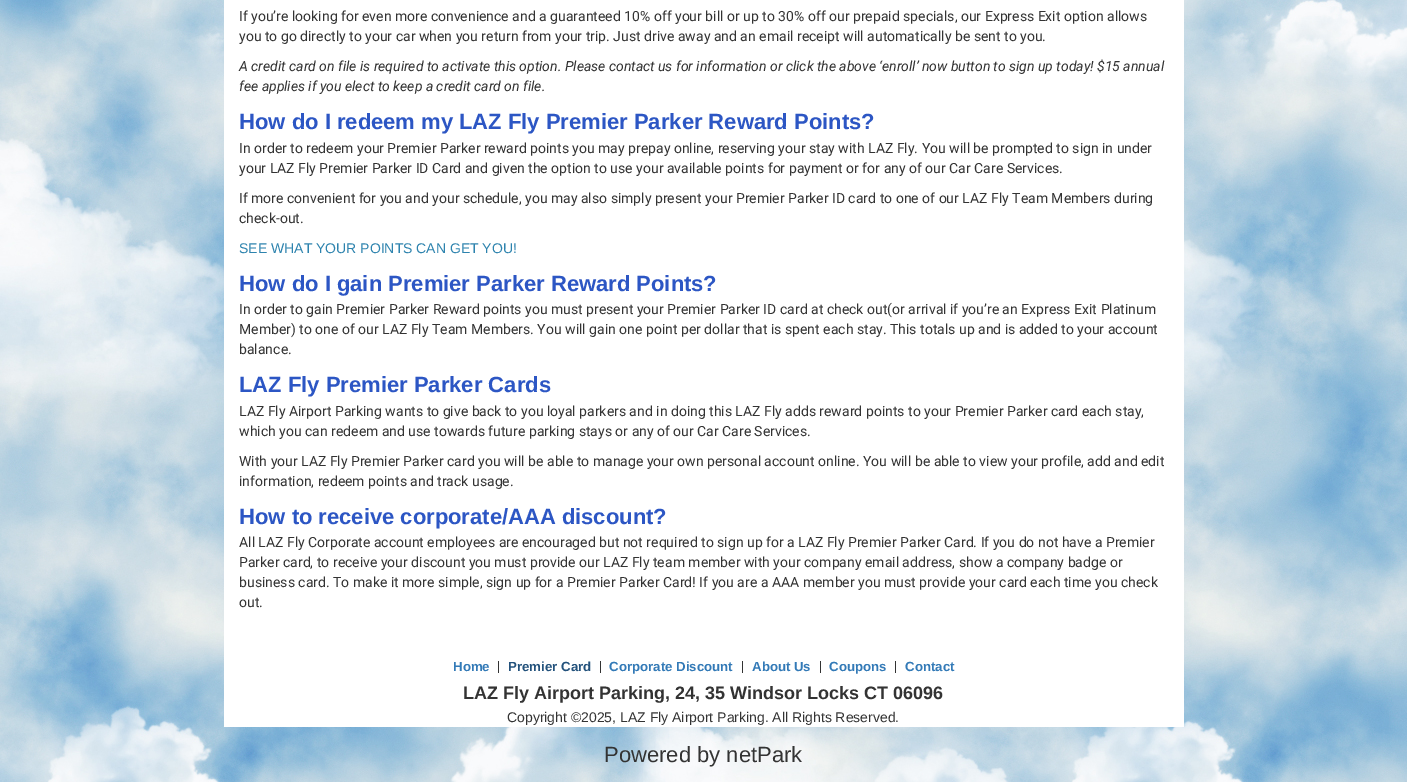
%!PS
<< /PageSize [1407 782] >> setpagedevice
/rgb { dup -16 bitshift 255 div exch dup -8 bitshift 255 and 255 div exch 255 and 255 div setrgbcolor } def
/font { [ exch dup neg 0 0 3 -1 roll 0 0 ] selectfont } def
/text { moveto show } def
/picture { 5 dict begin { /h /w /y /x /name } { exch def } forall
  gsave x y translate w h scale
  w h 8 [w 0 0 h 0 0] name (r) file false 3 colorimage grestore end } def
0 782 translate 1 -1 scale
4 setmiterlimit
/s1 { /Roboto-Regular 14 font 16#333333 rgb } def
/s2 { /Roboto-Italic 14 font 16#333333 rgb } def
/s3 { /LiberationSans-Bold 22 font 16#2C56C4 rgb } def
/s4 { /LiberationSans-Regular 14 font 16#2D83AE rgb } def
/s5 { /LiberationSans-Bold 13.25 font 16#337AB7 rgb } def
/s6 { /LiberationSans-Bold 13.25 font 16#23527C rgb } def
/s7 { /LiberationSans-Bold 18 font 16#333333 rgb } def
/s8 { /LiberationSans-Regular 14 font 16#333333 rgb } def
/s9 { /LiberationSans-Regular 22 font 16#333333 rgb } def
16#FFFFFF rgb
0 0 1407 782 rectfill
(pic1.raw) 0 0 1407 782 picture
224 0 960 727 rectfill
s1
(If you’re looking for even more convenience and a guaranteed 10% off your bill or up to 30% off our prepaid specials, our Express Exit option allows) 239 21 text
(you to go directly to your car when you return from your trip. Just drive away and an email receipt will automatically be sent to you.) 239 41 text
s2
(A credit card on file is required to activate this option. Please contact us for information or click the above ‘enroll’ now button to sign up today! $15 annual) 239 71 text
(fee applies if you elect to keep a credit card on file.) 239 91 text
s3
(How do I redeem my LAZ Fly Premier Parker Reward Points?) 239 129 text
s1
(In order to redeem your Premier Parker reward points you may prepay online, reserving your stay with LAZ Fly. You will be prompted to sign in under) 239 153 text
(your LAZ Fly Premier Parker ID Card and given the option to use your available points for payment or for any of our Car Care Services.) 239 173 text
(If more convenient for you and your schedule, you may also simply present your Premier Parker ID card to one of our LAZ Fly Team Members during) 239 203 text
(check-out.) 239 223 text
s4
(SEE WHAT YOUR POINTS CAN GET YOU!) 239 253 text
s3
(How do I gain Premier Parker Reward Points?) 239 291 text
s1
(In order to gain Premier Parker Reward points you must present your Premier Parker ID card at check out\(or arrival if you’re an Express Exit Platinum) 239 314 text
(Member\) to one of our LAZ Fly Team Members. You will gain one point per dollar that is spent each stay. This totals up and is added to your account) 239 334 text
(balance.) 239 354 text
s3
(LAZ Fly Premier Parker Cards) 239 392 text
s1
(LAZ Fly Airport Parking wants to give back to you loyal parkers and in doing this LAZ Fly adds reward points to your Premier Parker card each stay,) 239 416 text
(which you can redeem and use towards future parking stays or any of our Car Care Services.) 239 436 text
(With your LAZ Fly Premier Parker card you will be able to manage your own personal account online. You will be able to view your profile, add and edit) 239 466 text
(information, redeem points and track usage.) 239 486 text
s3
(How to receive corporate/AAA discount?) 239 524 text
s1
(All LAZ Fly Corporate account employees are encouraged but not required to sign up for a LAZ Fly Premier Parker Card. If you do not have a Premier) 239 547 text
(Parker card, to receive your discount you must provide our LAZ Fly team member with your company email address, show a company badge or) 239 567 text
(business card. To make it more simple, sign up for a Premier Parker Card! If you are a AAA member you must provide your card each time you check) 239 587 text
(out.) 239 607 text
s5
(Home) 453 671 text
16#333333 rgb
498 661 1 12 rectfill
s6
(Premier Card) 508 671 text
16#333333 rgb
600 661 1 12 rectfill
s5
(Corporate Discount) 609 671 text
16#333333 rgb
742 661 1 12 rectfill
s5
(About Us) 752 671 text
16#333333 rgb
820 661 1 12 rectfill
s5
(Coupons) 829 671 text
16#333333 rgb
895 661 1 12 rectfill
s5
(Contact) 905 671 text
s7
(LAZ Fly Airport Parking, 24, 35 Windsor Locks CT 06096) 463 699 text
s8
(Copyright ©2025, LAZ Fly Airport Parking. All Rights Reserved.) 507 722 text
s9
(Powered by netPark) 604 762 text
showpage
